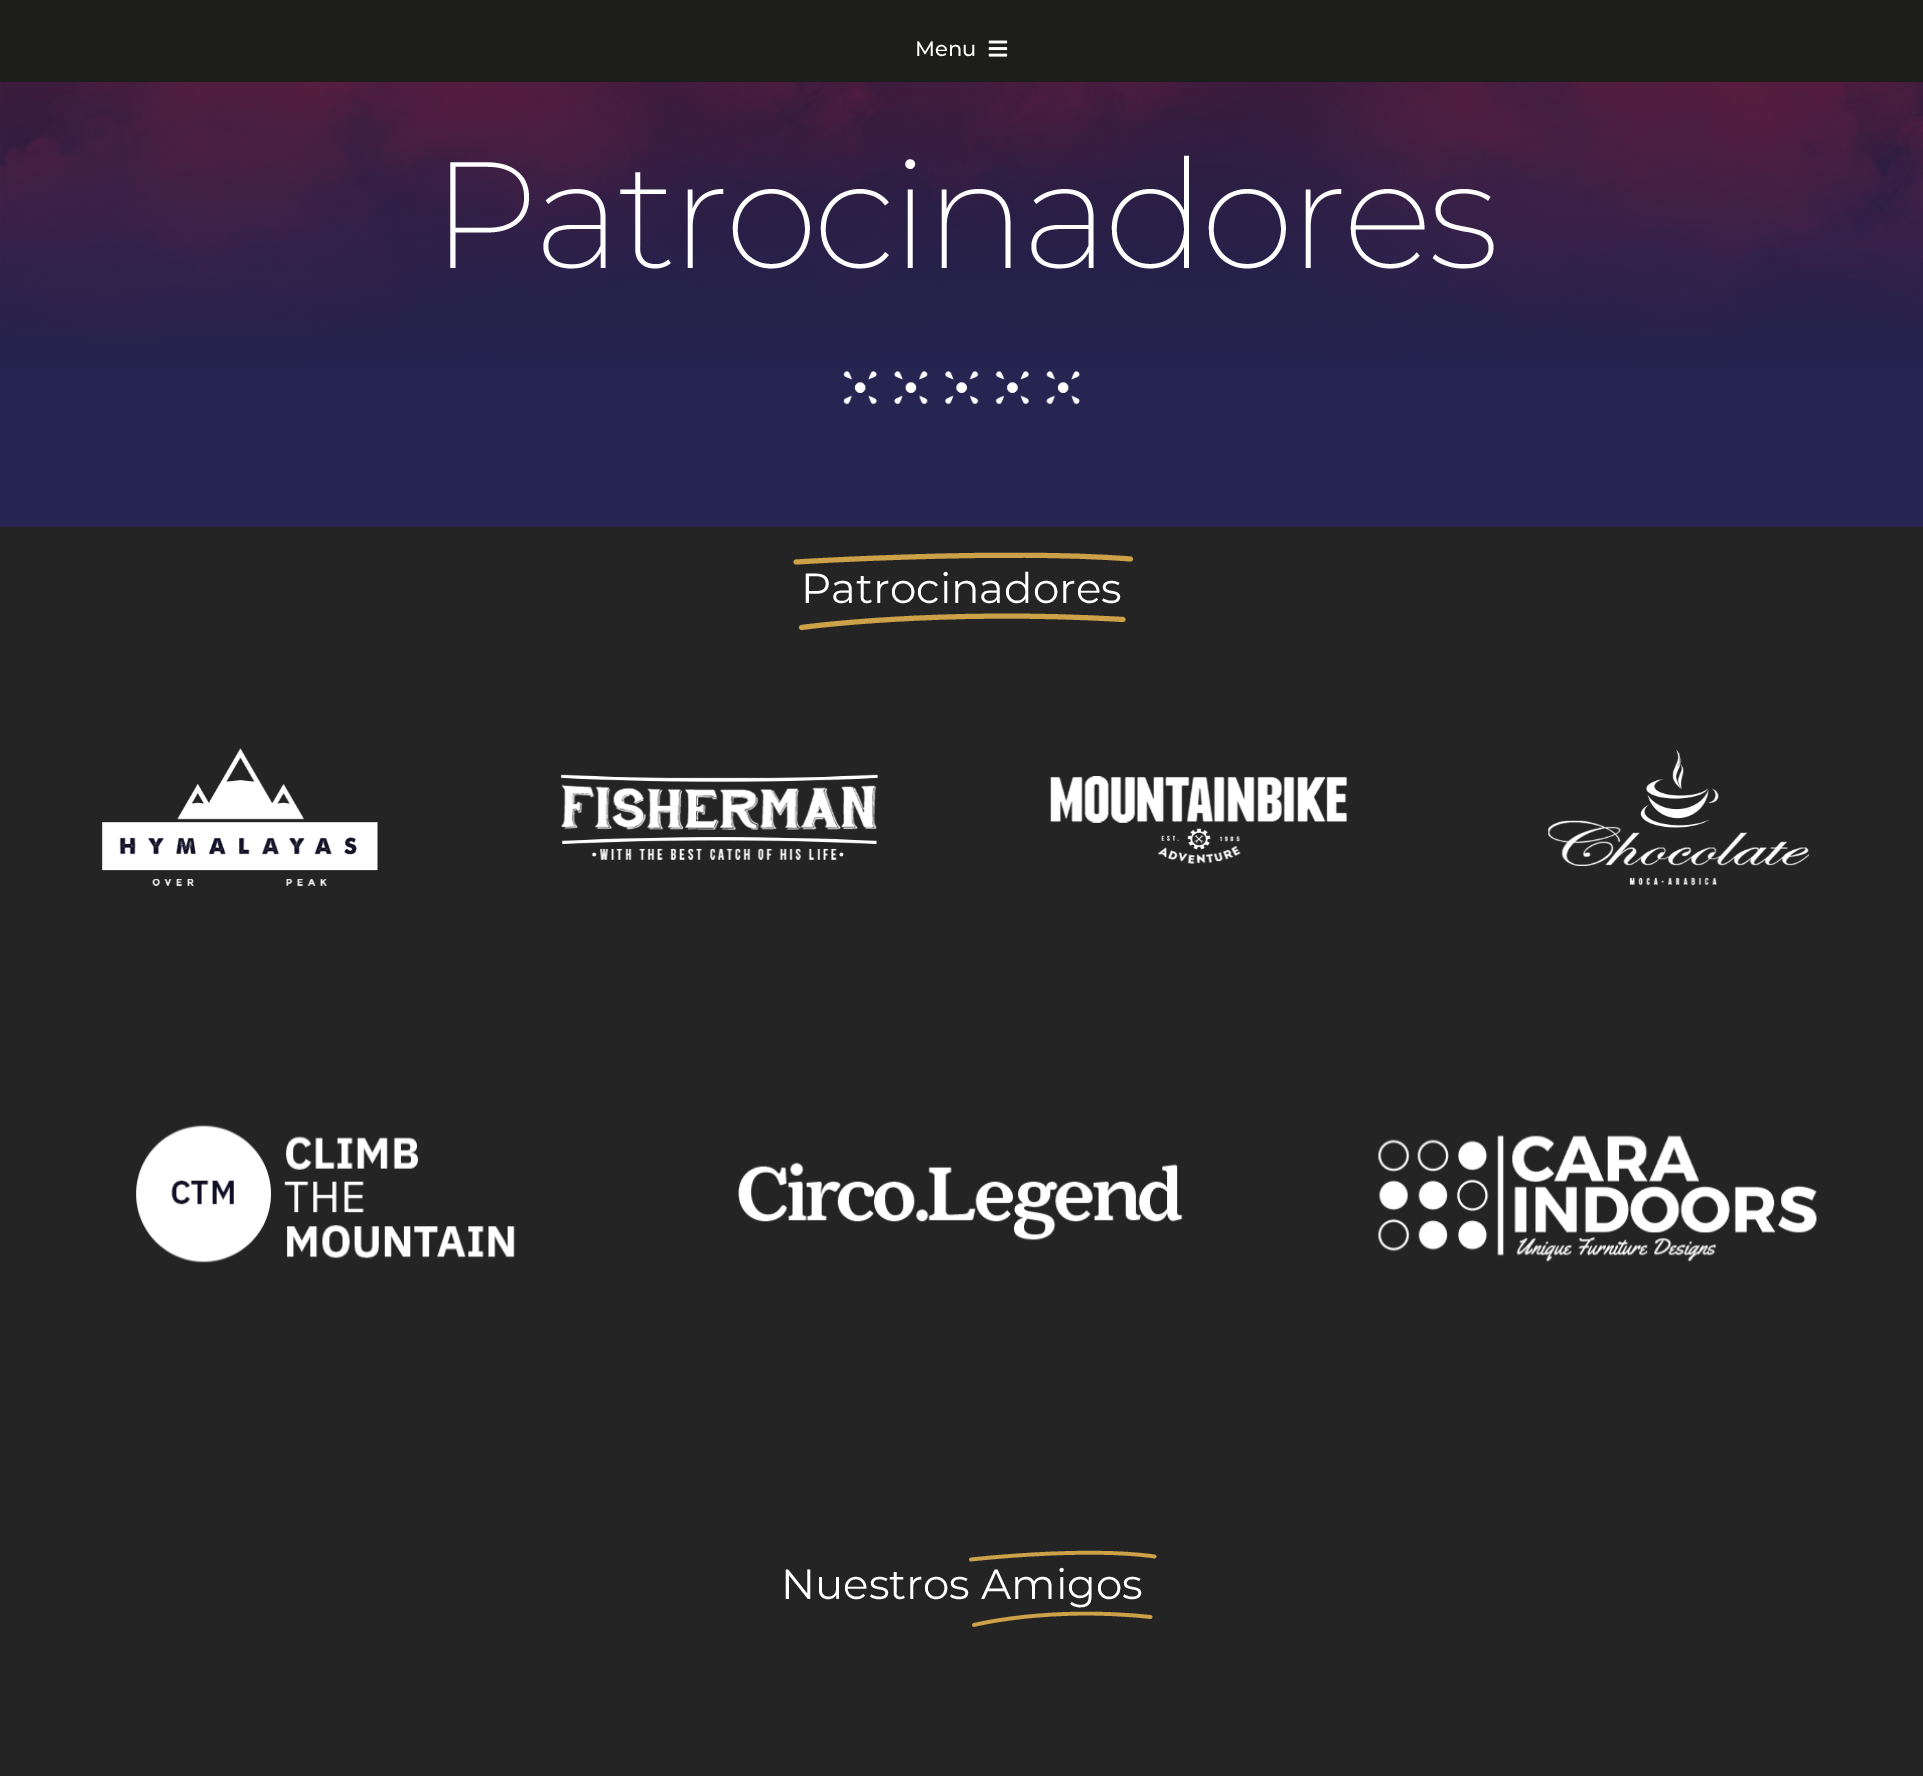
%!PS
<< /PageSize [1923 1776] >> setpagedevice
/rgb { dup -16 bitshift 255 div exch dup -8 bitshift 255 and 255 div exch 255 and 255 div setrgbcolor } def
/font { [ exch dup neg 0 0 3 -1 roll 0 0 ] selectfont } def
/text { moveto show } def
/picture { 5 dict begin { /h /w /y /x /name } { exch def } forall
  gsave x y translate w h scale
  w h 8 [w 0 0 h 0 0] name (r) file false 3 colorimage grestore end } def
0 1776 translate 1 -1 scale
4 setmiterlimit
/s1 { /Montserrat-Medium 21 font 16#FFFFFF rgb } def
/s2 { /Montserrat-Regular 42 font 16#FFFFFF rgb } def
16#FFFFFF rgb
0 0 1923 1776 rectfill
16#1D1D1B rgb
0 0 1923 82 rectfill
s1
(Menu) 915 56 text
(pic1.raw) 988 40 20 17 picture
(pic2.raw) 0 82 1923 445 picture
/Montserrat-ExtraLight 151.25 font
431 268 moveto -4.8 0 (Patrocinadores) ashow
(pic3.raw) 843 371 237 34 picture
16#242424 rgb
0 527 1923 1249 rectfill
16#CCA147 rgb
5 setlinewidth
1 setlinecap
1 setlinejoin
801.5 627.5 moveto 801.5 627.5 937 608.5 1123 619.5 curveto stroke
796 562 moveto 796 562 1004.5 549 1130.5 559 curveto stroke
s2
(Patrocinadores) 801 603 text
(pic4.raw) 101 748 277 138 picture
(pic5.raw) 560 774 319 86 picture
(pic6.raw) 1050 776 298 88 picture
(pic7.raw) 1548 749 262 137 picture
(pic8.raw) 136 1125 379 138 picture
(pic9.raw) 738 1162 445 79 picture
(pic10.raw) 1378 1135 439 127 picture
16#CCA147 rgb
3.7 setlinewidth
974 1625 moveto 974 1625 1048.5 1606 1150.5 1617 curveto stroke
971 1559.5 moveto 971 1559.5 1085.5 1546.5 1154.5 1556.5 curveto stroke
s2
(Nuestros Amigos) 781 1599 text
showpage
